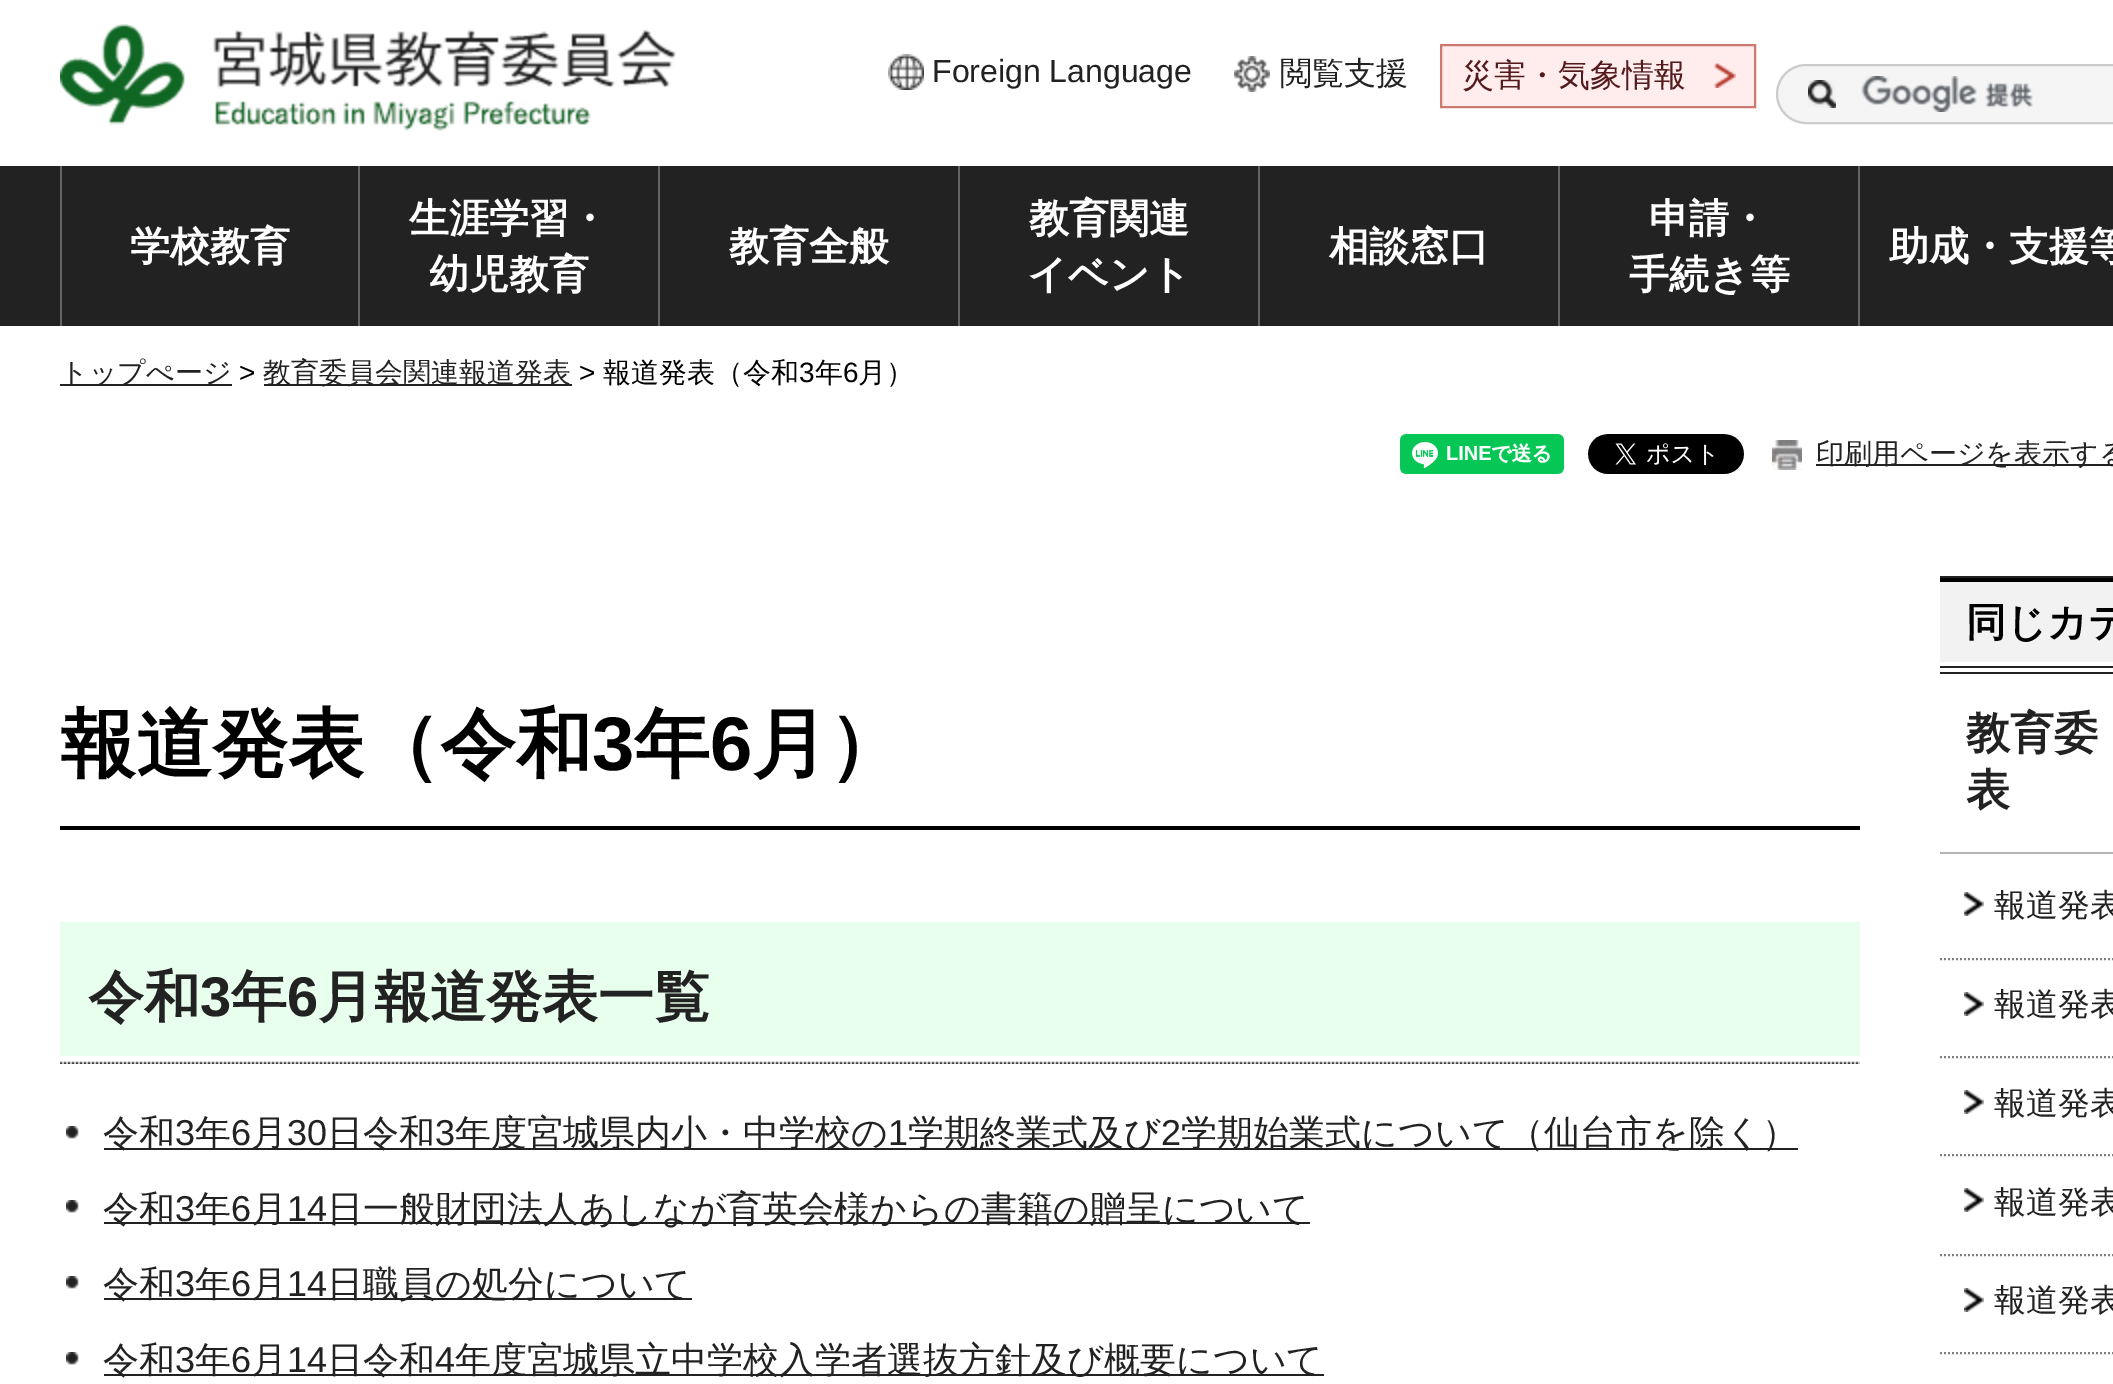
%!PS
<< /PageSize [2113 1384] >> setpagedevice
/rgb { dup -16 bitshift 255 div exch dup -8 bitshift 255 and 255 div exch 255 and 255 div setrgbcolor } def
/font { [ exch dup neg 0 0 3 -1 roll 0 0 ] selectfont } def
/text { moveto show } def
/roundrect { 5 dict begin { /r /h /w /y /x } { exch def } forall
  x r add y moveto x w add y 2 copy h add r arct x w add y h add x 1 index r arct
  x y h add x y r arct x y 2 copy exch w add exch r arct closepath end } def
/picture { 5 dict begin { /h /w /y /x /name } { exch def } forall
  gsave x y translate w h scale
  w h 8 [w 0 0 h 0 0] name (r) file false 3 colorimage grestore end } def
0 1384 translate 1 -1 scale
4 setmiterlimit
/s1 { /LiberationSans-Regular 32 font 16#222222 rgb } def
/s2 { /WenQuanYiZenHei-Medium 32 font 16#222222 rgb } def
/s3 { /WenQuanYiZenHei-Medium 32 font 16#531B1B rgb } def
/s4 { /WenQuanYiZenHei-Bold 40 font 16#FFFFFF rgb } def
/s5 { /WenQuanYiZenHei-Medium 28 font 16#222222 rgb } def
/s6 { /LiberationSans-Regular 28 font 16#000000 rgb } def
/s7 { /WenQuanYiZenHei-Medium 28 font 16#000000 rgb } def
/s8 { /WenQuanYiZenHei-Bold 76 font 16#000000 rgb } def
/s9 { /LiberationSans-Bold 76 font 16#000000 rgb } def
/s10 { /WenQuanYiZenHei-Bold 56 font 16#222222 rgb } def
/s11 { /LiberationSans-Bold 56 font 16#222222 rgb } def
/s12 { /WenQuanYiZenHei-Medium 36 font 16#222222 rgb } def
/s13 { /LiberationSans-Regular 36 font 16#222222 rgb } def
/s14 { /WenQuanYiZenHei-Bold 40 font 16#000000 rgb } def
/s15 { /WenQuanYiZenHei-Bold 44 font 16#222222 rgb } def
16#FFFFFF rgb
0 0 2113 1384 rectfill
(pic1.raw) 60 24 616 107 picture
(pic2.raw) 888 54 36 36 picture
s1
(Foreign Language) 932 82 text
(pic3.raw) 1234 56 36 36 picture
s2
(閲覧支援) 1280 84 text
16#FFECEC rgb
1441 45 moveto 1755 45 lineto 1755 107 lineto 1441 107 lineto closepath gsave fill grestore
16#CD7970 rgb
2 setlinewidth
stroke
s3
(災害・気象情報) 1462 86 text
(pic4.raw) 1714 63 22 25 picture
16#F5F5F5 rgb
1776 64 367 60 30 roundrect fill
(pic5.raw) 1861 76 172 36 picture
16#CCCCCC rgb
1777 65 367 58 29 roundrect stroke
16#F2F2F2 rgb
1808 80 28 28 rectfill
(pic6.raw) 1808 80 28 28 picture
16#222222 rgb
0 166 2113 160 rectfill
16#646464 rgb
358 166 2 160 rectfill
60 166 2 160 rectfill
s4
(学校教育) 130 260 text
16#646464 rgb
658 166 2 160 rectfill
s4
(生涯学習・) 409 232 text
(幼児教育) 429 288 text
16#646464 rgb
958 166 2 160 rectfill
s4
(教育全般) 729 260 text
16#646464 rgb
1258 166 2 160 rectfill
s4
(教育関連) 1029 232 text
(イベント) 1027 288 text
16#646464 rgb
1558 166 2 160 rectfill
s4
(相談窓口) 1329 260 text
16#646464 rgb
1858 166 2 160 rectfill
s4
(申請・) 1649 232 text
(手続き等) 1629 288 text
(助成・支援等) 1889 260 text
16#222222 rgb
60 384 172 2 rectfill
s5
(トップぺージ) 60 382 text
s6
(>) 239 382 text
16#222222 rgb
264 384 308 2 rectfill
s5
(教育委員会関連報道発表) 263 382 text
s6
(>) 579 382 text
s7
(報道発表（令和) 603 382 text
s6
(3) 799 382 text
s7
(年) 815 382 text
s6
(6) 843 382 text
s7
(月）) 858 382 text
(pic7.raw) 1400 434 164 40 picture
(pic8.raw) 1588 434 156 40 picture
(pic9.raw) 1772 440 30 30 picture
16#222222 rgb
1816 464 297 2 rectfill
(印刷用ページを表示する) 1816 463 text
16#000000 rgb
60 826 1800 4 rectfill
s8
(報道発表（令和) 60 770 text
s9
(3) 592 770 text
s8
(年) 634 770 text
s9
(6) 710 770 text
s8
(月）) 752 770 text
16#E8FFEE rgb
60 922 1800 134 rectfill
(pic10.raw) 60 1056 1800 8 picture
s10
(令和) 88 1016 text
s11
(3) 200 1016 text
s10
(年) 231 1016 text
s11
(6) 287 1016 text
s10
(月報道発表一覧) 318 1016 text
(pic11.raw) 66 1126 13 13 picture
104 1148 1694 2 rectfill
s12
(令和) 103 1145 text
s13
(3) 175 1145 text
s12
(年) 195 1145 text
s13
(6) 231 1145 text
s12
(月) 251 1145 text
s13
(30) 287 1145 text
s12
(日令和) 327 1145 text
s13
(3) 435 1145 text
s12
(年度宮城県内小・中学校の) 455 1145 text
s13
(1) 888 1145 text
s12
(学期終業式及び) 908 1145 text
s13
(2) 1161 1145 text
s12
(学期始業式について（仙台市を除く）) 1181 1145 text
(pic11.raw) 66 1200 13 13 picture
104 1222 1206 2 rectfill
(令和) 103 1221 text
s13
(3) 175 1221 text
s12
(年) 195 1221 text
s13
(6) 231 1221 text
s12
(月) 251 1221 text
s13
(14) 287 1221 text
s12
(日一般財団法人あしなが育英会様からの書籍の贈呈について) 327 1221 text
(pic11.raw) 66 1276 13 13 picture
104 1298 588 2 rectfill
(令和) 103 1296 text
s13
(3) 175 1296 text
s12
(年) 195 1296 text
s13
(6) 231 1296 text
s12
(月) 251 1296 text
s13
(14) 287 1296 text
s12
(日職員の処分について) 327 1296 text
(pic11.raw) 66 1352 13 13 picture
104 1374 1220 2 rectfill
(令和) 103 1372 text
s13
(3) 175 1372 text
s12
(年) 195 1372 text
s13
(6) 231 1372 text
s12
(月) 251 1372 text
s13
(14) 287 1372 text
s12
(日令和) 327 1372 text
s13
(4) 435 1372 text
s12
(年度宮城県立中学校入学者選抜方針及び概要について) 455 1372 text
1940 576 173 2 rectfill
16#B5B3B3 rgb
1940 852 173 2 rectfill
16#F2F2F2 rgb
1940 582 173 80 rectfill
16#000000 rgb
1940 578 173 4 rectfill
s14
(同じカテ) 1966 636 text
16#222222 rgb
1940 666 173 2 rectfill
1940 672 173 2 rectfill
s15
(教育委) 1966 748 text
(表) 1966 805 text
16#7F7F7F rgb
[2 2] 0 setdash
1940 959 moveto 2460 959 lineto stroke
(pic12.raw) 1964 892 20 24 picture
s2
(報道発表) 1994 916 text
16#7F7F7F rgb
1940 1057 moveto 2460 1057 lineto stroke
(pic12.raw) 1964 992 20 24 picture
s2
(報道発表) 1994 1015 text
16#7F7F7F rgb
1940 1155 moveto 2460 1155 lineto stroke
(pic12.raw) 1964 1090 20 24 picture
s2
(報道発表) 1994 1114 text
16#7F7F7F rgb
1940 1255 moveto 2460 1255 lineto stroke
(pic12.raw) 1964 1188 20 24 picture
s2
(報道発表) 1994 1213 text
16#7F7F7F rgb
1940 1353 moveto 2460 1353 lineto stroke
(pic12.raw) 1964 1288 20 24 picture
s2
(報道発表) 1994 1311 text
showpage
